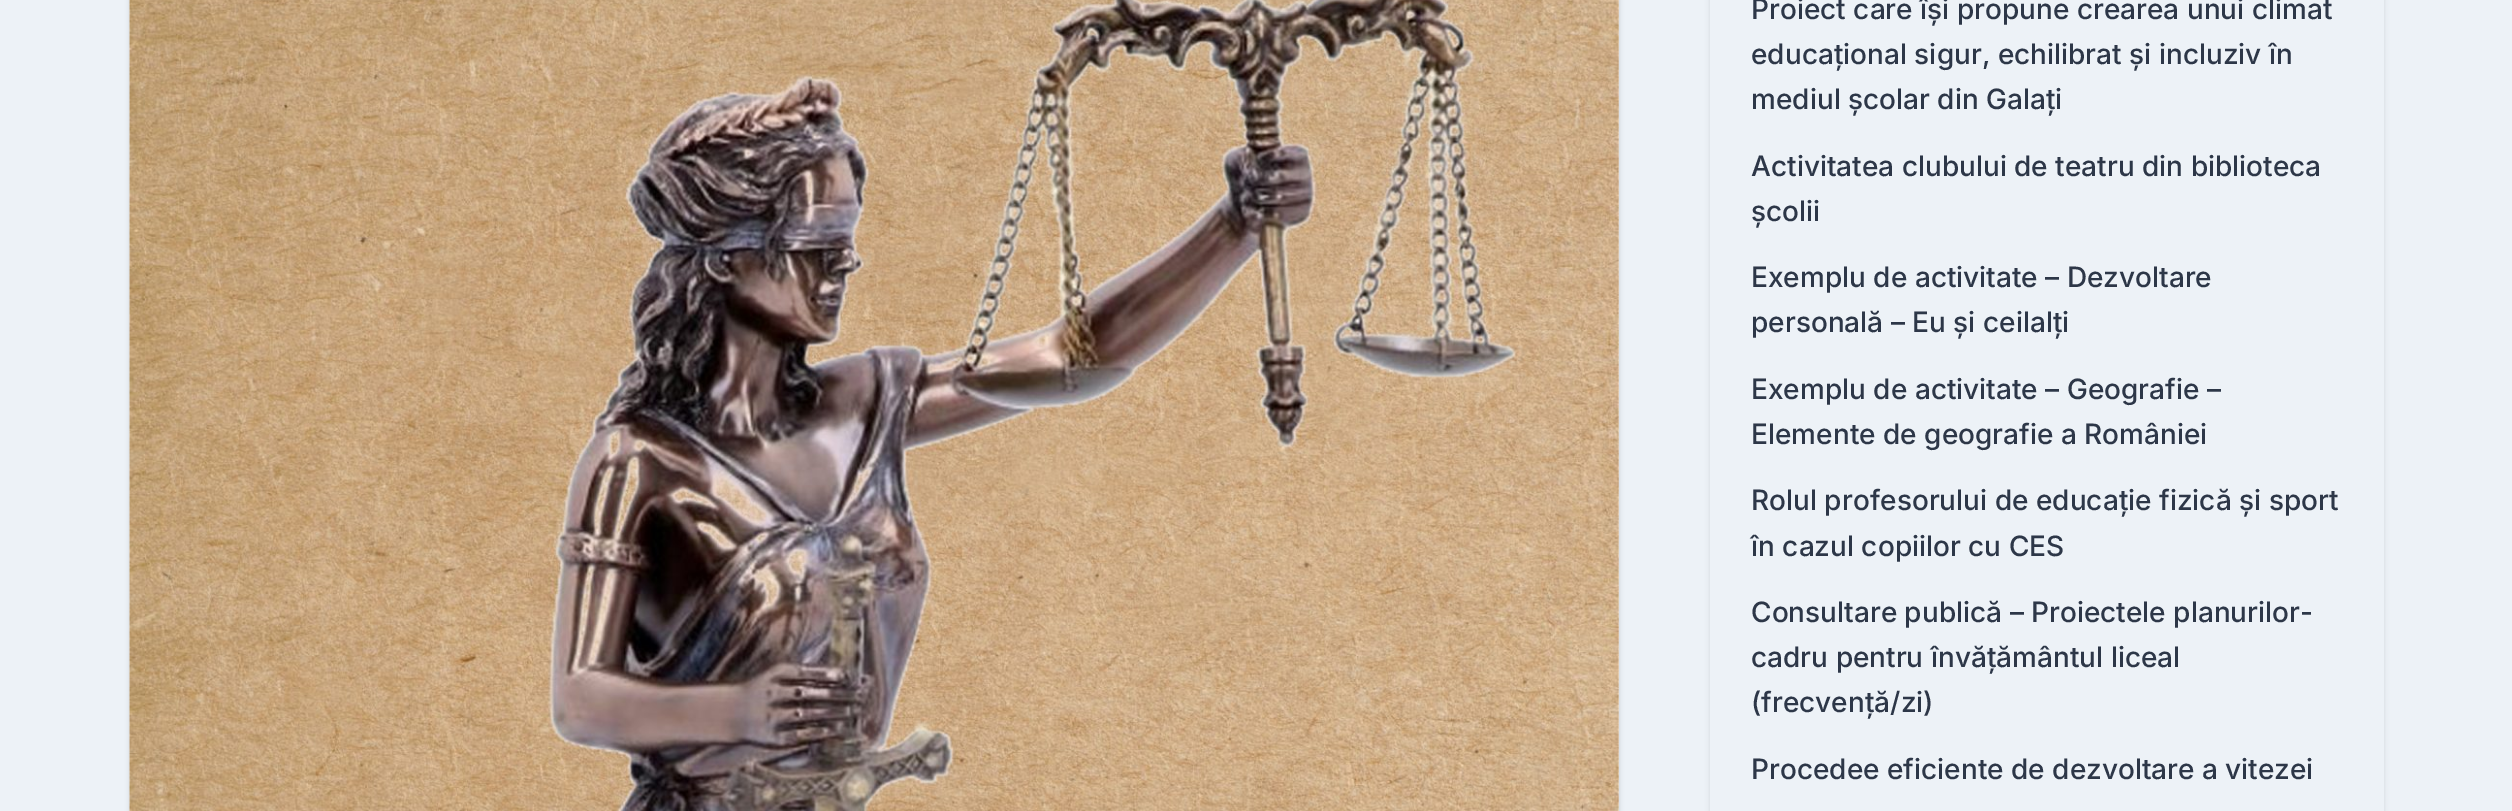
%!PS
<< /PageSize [2512 811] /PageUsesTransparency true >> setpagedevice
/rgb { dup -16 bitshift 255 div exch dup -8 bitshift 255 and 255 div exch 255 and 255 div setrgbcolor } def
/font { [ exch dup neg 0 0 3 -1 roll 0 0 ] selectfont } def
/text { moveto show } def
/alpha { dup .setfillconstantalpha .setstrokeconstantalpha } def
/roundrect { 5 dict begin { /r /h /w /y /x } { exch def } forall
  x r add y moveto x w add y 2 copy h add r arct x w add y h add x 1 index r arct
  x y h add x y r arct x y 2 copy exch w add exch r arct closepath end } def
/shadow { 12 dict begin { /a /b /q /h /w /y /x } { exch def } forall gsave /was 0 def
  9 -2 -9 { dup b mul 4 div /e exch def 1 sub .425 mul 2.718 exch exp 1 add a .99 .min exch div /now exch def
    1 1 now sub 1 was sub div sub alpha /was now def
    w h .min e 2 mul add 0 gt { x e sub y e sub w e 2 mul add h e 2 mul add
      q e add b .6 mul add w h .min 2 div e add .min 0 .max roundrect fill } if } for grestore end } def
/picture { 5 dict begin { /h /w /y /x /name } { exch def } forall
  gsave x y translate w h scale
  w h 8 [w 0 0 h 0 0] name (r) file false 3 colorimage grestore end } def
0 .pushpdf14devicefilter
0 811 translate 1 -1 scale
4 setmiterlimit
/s1 { /Inter-Medium 28 font 16#2D3748 rgb } def
16#EDF2F7 rgb
0 0 2512 811 rectfill
16#000000 rgb
130 -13 1489 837 7 2 0.06 shadow
130 -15 1489 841 7 2.5 0.1 shadow
(pic1.raw) 129 0 1490 811 picture
gsave
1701 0 moveto 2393 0 lineto 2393 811 lineto 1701 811 lineto closepath 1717 -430 moveto 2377 -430 lineto 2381 -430 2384 -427 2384 -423 curveto 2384 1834 lineto 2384 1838 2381 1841 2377 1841 curveto 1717 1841 lineto 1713 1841 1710 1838 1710 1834 curveto 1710 -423 lineto 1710 -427 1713 -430 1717 -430 curveto closepath eoclip newpath
1710 -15 674 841 7 2.5 0.1 shadow
grestore
s1
(Proiect care își propune crearea unui climat) 1751 19 text
(educațional sigur, echilibrat și incluziv în) 1751 64 text
(mediul școlar din Galați) 1751 109 text
(Activitatea clubului de teatru din biblioteca) 1751 176 text
(școlii) 1751 221 text
(Exemplu de activitate – Dezvoltare) 1751 287 text
(personală – Eu și ceilalți) 1751 332 text
(Exemplu de activitate – Geografie –) 1751 399 text
(Elemente de geografie a României) 1751 444 text
(Rolul profesorului de educație fizică și sport) 1751 510 text
(în cazul copiilor cu CES) 1751 556 text
(Consultare publică – Proiectele planurilor-) 1751 622 text
(cadru pentru învățământul liceal) 1751 667 text
(\(frecvență/zi\)) 1751 712 text
(Procedee eficiente de dezvoltare a vitezei) 1751 779 text
.poppdf14devicefilter showpage
